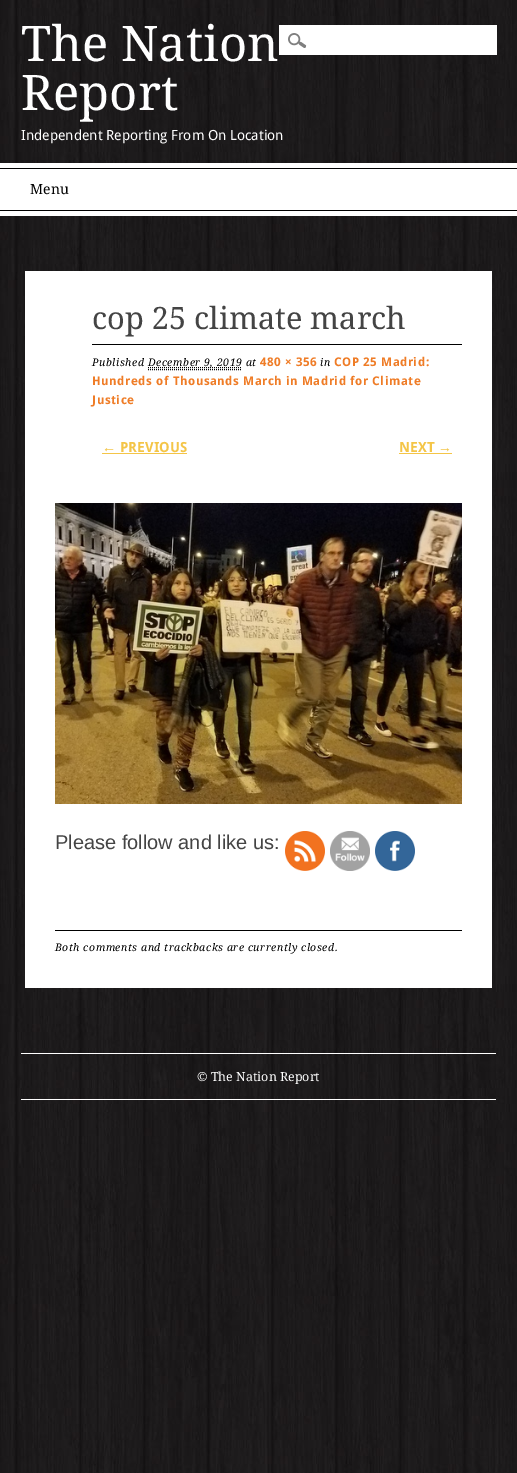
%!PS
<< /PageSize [517 1473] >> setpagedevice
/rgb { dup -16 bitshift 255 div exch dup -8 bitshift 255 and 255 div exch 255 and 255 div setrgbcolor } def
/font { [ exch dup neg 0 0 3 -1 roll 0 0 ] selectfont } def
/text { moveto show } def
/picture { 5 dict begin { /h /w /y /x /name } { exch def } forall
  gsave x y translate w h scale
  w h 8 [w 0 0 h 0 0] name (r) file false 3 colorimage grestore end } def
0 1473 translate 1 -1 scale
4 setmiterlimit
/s1 { /DroidSerif-Regular 49 font 16#FFFFFF rgb } def
/s2 { /DroidSans-Regular 14 font 16#FFFFFF rgb } def
/s3 { /DroidSerif-Regular 14 font 16#000000 rgb } def
/s4 { /DroidSerif-Regular 30.75 font 16#444444 rgb } def
/s5 { /LiberationSans-Bold 14 font 16#F4C547 rgb } def
/s6 { /DroidSans-Bold 14 font 16#F4C547 rgb } def
/s7 { /LiberationSans-Regular 20 font 16#444444 rgb } def
/s8 { /DroidSerif-Regular 12.5 font 16#FFFFFF rgb } def
16#FFFFFF rgb
0 0 517 1473 rectfill
(pic1.raw) 0 0 517 1473 picture
s1
(The Nation) 21 61 text
(Report) 21 110 text
s2
(Independent Reporting From On Location) 21 140 text
279 25 218 30 rectfill
(pic2.raw) 288 33 19 15 picture
0 163 517 53 rectfill
16#000000 rgb
0 168 517 1 rectfill
0 210 517 1 rectfill
s3
(Menu) 30 194 text
16#FFFFFF rgb
25 271 467 717 rectfill
16#000000 rgb
92 344 370 1 rectfill
s4
(cop 25 climate march) 92 329 text
/DroidSerif-Italic 10.5 font
16#000000 rgb
92 366 moveto 0.53 0 (Published) ashow
[1 1] 0 setdash
148 367.5 moveto 242 367.5 lineto stroke
148 366 moveto 0.53 0 (December 9, 2019 at) ashow
148 369.5 moveto 242 369.5 lineto stroke
/DroidSans-Bold 12 font
16#EF7C26 rgb
260 366 moveto 0.53 0 (480 × 356) ashow
/DroidSerif-Italic 10.5 font
16#000000 rgb
320 366 moveto 0.53 0 (in) ashow
/DroidSans-Bold 12 font
16#EF7C26 rgb
334 366 moveto 0.53 0 (COP 25 Madrid:) ashow
92 385 moveto 0.53 0 (Hundreds of Thousands March in Madrid for Climate) ashow
92 404 moveto 0.53 0 (Justice) ashow
s5
(←) 102 452 text
102 453 85 1 rectfill
s6
(PREVIOUS) 120 452 text
(NEXT) 399 452 text
s5
(→) 438 452 text
399 453 53 1 rectfill
(pic3.raw) 55 503 407 301 picture
s7
(Please follow and like us:) 55 849 text
(pic4.raw) 285 831 40 40 picture
(pic5.raw) 330 831 40 40 picture
(pic6.raw) 375 831 40 40 picture
16#000000 rgb
55 930 407 1 rectfill
/DroidSerif-Italic 10.5 font
55 951 moveto 0.53 0 (Both comments and trackbacks are currently closed.) ashow
16#FFFFFF rgb
21 1053 475 1 rectfill
21 1099 475 1 rectfill
s8
(© The Nation Report) 197 1081 text
showpage
